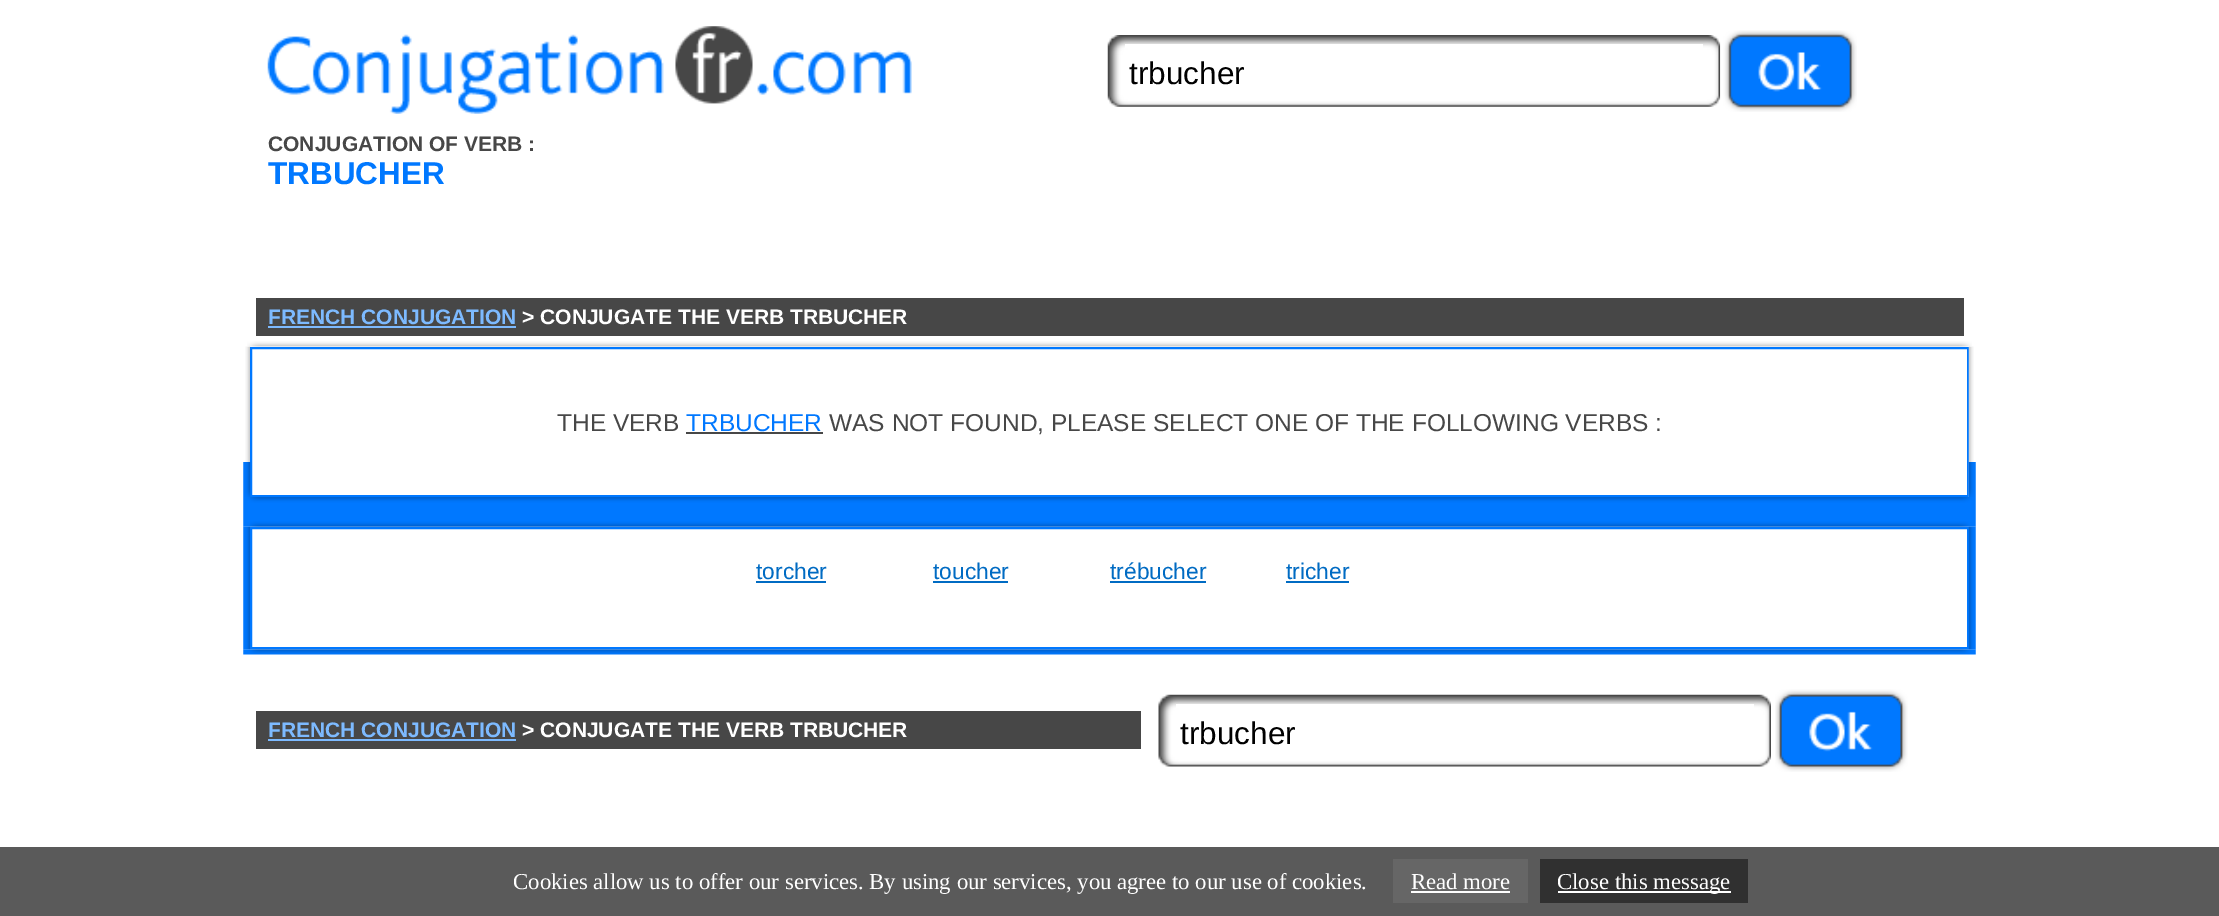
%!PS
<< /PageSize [2219 916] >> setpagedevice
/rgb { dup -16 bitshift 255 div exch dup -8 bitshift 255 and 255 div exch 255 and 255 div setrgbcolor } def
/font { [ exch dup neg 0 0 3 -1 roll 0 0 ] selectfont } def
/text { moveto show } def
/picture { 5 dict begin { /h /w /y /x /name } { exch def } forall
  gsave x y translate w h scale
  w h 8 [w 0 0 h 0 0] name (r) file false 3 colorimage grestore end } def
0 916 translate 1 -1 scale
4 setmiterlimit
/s1 { /LiberationSans-Regular 31.5 font 16#000000 rgb } def
/s2 { /LiberationSans-Bold 21 font 16#474747 rgb } def
/s3 { /LiberationSans-Bold 31.5 font 16#0078FF rgb } def
/s4 { /LiberationSans-Bold 21 font 16#7DBAFF rgb } def
/s5 { /LiberationSans-Bold 21 font 16#FFFFFF rgb } def
/s6 { /LiberationSans-Regular 24.5 font 16#474747 rgb } def
/s7 { /LiberationSans-Regular 24.5 font 16#0078FF rgb } def
/s8 { /LiberationSans-Regular 22.75 font 16#006BC3 rgb } def
/s9 { /LiberationSerif-Regular 22.75 font 16#FFFFFF rgb } def
16#FFFFFF rgb
0 0 2219 916 rectfill
(pic1.raw) 267 26 645 88 picture
(pic2.raw) 1107 35 614 72 picture
1125 44 578 4 rectfill
s1
(trbucher) 1129 84 text
(pic3.raw) 1720 30 137 82 picture
s2
(CONJUGATION OF VERB :) 268 151 text
s3
(TRBUCHER) 268 184 text
16#474747 rgb
256 298 1708 38 rectfill
s4
(FRENCH CONJUGATION) 268 324 text
268 326 248 2 rectfill
s5
(> CONJUGATE THE VERB TRBUCHER) 522 324 text
(pic5.raw) 245 346 6 116 picture
16#0078FF rgb
2 setlinewidth
251 348 1717 148 rectstroke
(pic7.raw) 1968 346 6 151 picture
(pic4.raw) 247 341 1725 6 picture
(pic6.raw) 243 462 8 35 picture
s6
(THE VERB) 557 431 text
s7
(TRBUCHER) 686 431 text
16#474747 rgb
686 432 137 2 rectfill
(WAS NOT FOUND, PLEASE SELECT ONE OF THE FOLLOWING VERBS :) 829 431 text
(pic8.raw) 1968 462 8 35 picture
(pic10.raw) 243 526 8 124 picture
16#0078FF rgb
251 528 1717 120 rectstroke
(pic11.raw) 1968 526 8 124 picture
(pic9.raw) 243 497 1733 30 picture
s8
(torcher) 756 579 text
756 581 70 2 rectfill
(toucher) 933 579 text
933 581 75 2 rectfill
(trébucher) 1110 579 text
1110 581 96 2 rectfill
(tricher) 1286 579 text
1286 581 63 2 rectfill
(pic12.raw) 243 649 1733 6 picture
16#474747 rgb
256 711 885 38 rectfill
s4
(FRENCH CONJUGATION) 268 737 text
268 739 248 2 rectfill
s5
(> CONJUGATE THE VERB TRBUCHER) 522 737 text
(pic13.raw) 1158 694 613 73 picture
1176 704 578 4 rectfill
s1
(trbucher) 1180 744 text
(pic14.raw) 1775 689 133 83 picture
16#5A5A5A rgb
0 847 2219 69 rectfill
s9
(Cookies allow us to offer our services. By using our services, you agree to our use of cookies.) 513 889 text
16#666666 rgb
1393 859 135 44 rectfill
s9
(Read more) 1411 889 text
1411 891 99 2 rectfill
16#303030 rgb
1540 859 208 44 rectfill
16#FFFFFF rgb
1558 891 173 2 rectfill
(Close this message) 1557 889 text
showpage
